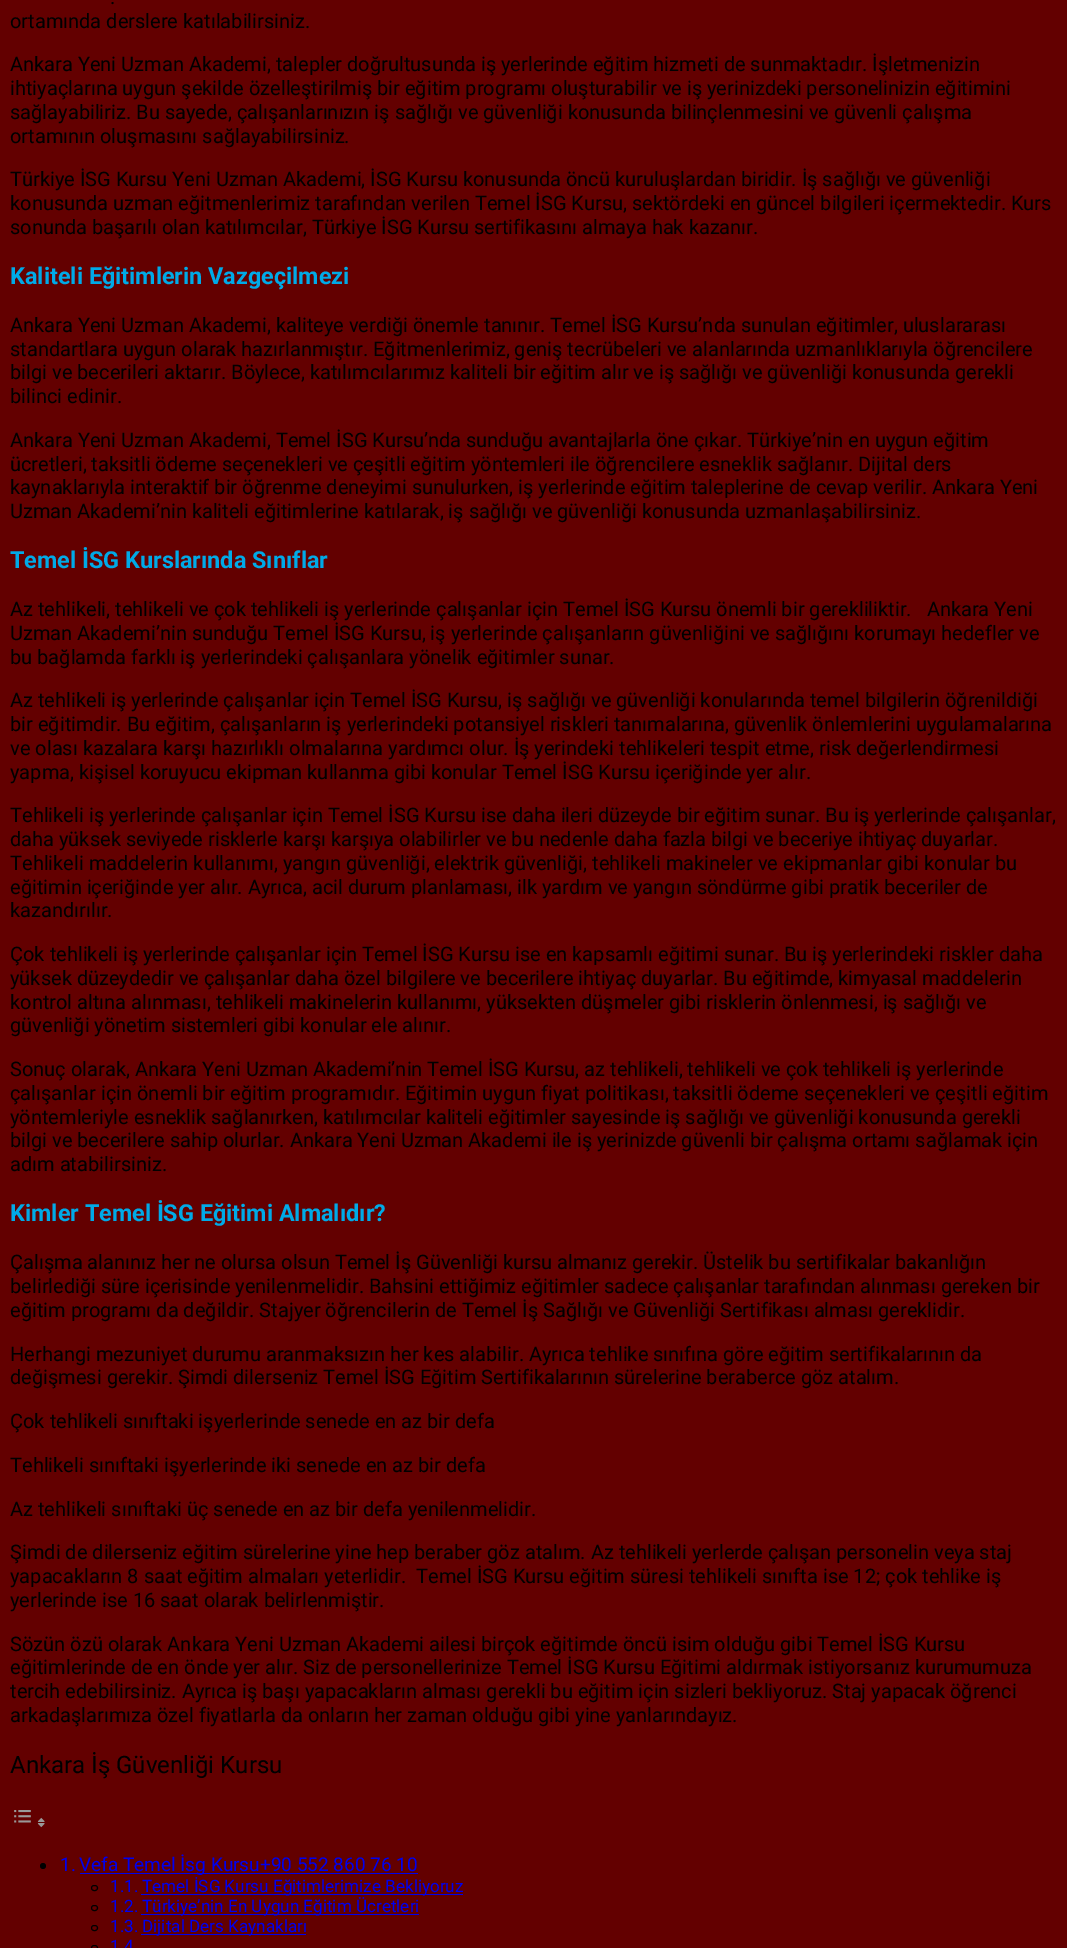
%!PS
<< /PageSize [1067 1948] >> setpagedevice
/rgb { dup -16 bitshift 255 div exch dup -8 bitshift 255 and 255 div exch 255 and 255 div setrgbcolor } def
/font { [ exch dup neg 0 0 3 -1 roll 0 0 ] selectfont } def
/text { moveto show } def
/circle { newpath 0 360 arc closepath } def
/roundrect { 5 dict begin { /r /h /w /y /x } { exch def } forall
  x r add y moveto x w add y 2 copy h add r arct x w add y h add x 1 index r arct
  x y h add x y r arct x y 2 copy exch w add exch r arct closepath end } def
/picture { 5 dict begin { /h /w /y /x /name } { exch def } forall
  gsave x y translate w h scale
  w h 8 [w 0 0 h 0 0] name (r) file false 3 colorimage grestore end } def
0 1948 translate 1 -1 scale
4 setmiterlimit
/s1 { /Roboto-Regular 20 font 16#000000 rgb } def
/s2 { /Roboto-Bold 23.4 font 16#00AAE7 rgb } def
/s3 { /Roboto-Regular 24 font 16#000000 rgb } def
/s4 { /Roboto-Regular 19 font 16#0000EE rgb } def
/s5 { /Roboto-Regular 17.1 font 16#0000EE rgb } def
16#630000 rgb
0 0 1067 1948 rectfill
s1
(.) 110 4 text
(ortamında derslere katılabilirsiniz.) 10 28 text
(Ankara Yeni Uzman Akademi, talepler doğrultusunda iş yerlerinde eğitim hizmeti de sunmaktadır. İşletmenizin) 10 71 text
(ihtiyaçlarına uygun şekilde özelleştirilmiş bir eğitim programı oluşturabilir ve iş yerinizdeki personelinizin eğitimini) 10 95 text
(sağlayabiliriz. Bu sayede, çalışanlarınızın iş sağlığı ve güvenliği konusunda bilinçlenmesini ve güvenli çalışma) 10 119 text
(ortamının oluşmasını sağlayabilirsiniz.) 10 143 text
(Türkiye İSG Kursu Yeni Uzman Akademi, İSG Kursu konusunda öncü kuruluşlardan biridir. İş sağlığı ve güvenliği) 10 186 text
(konusunda uzman eğitmenlerimiz tarafından verilen Temel İSG Kursu, sektördeki en güncel bilgileri içermektedir. Kurs) 10 210 text
(sonunda başarılı olan katılımcılar, Türkiye İSG Kursu sertifikasını almaya hak kazanır.) 10 234 text
s2
(Kaliteli Eğitimlerin Vazgeçilmezi) 10 284 text
s1
(Ankara Yeni Uzman Akademi, kaliteye verdiği önemle tanınır. Temel İSG Kursu’nda sunulan eğitimler, uluslararası) 10 332 text
(standartlara uygun olarak hazırlanmıştır. Eğitmenlerimiz, geniş tecrübeleri ve alanlarında uzmanlıklarıyla öğrencilere) 10 356 text
(bilgi ve becerileri aktarır. Böylece, katılımcılarımız kaliteli bir eğitim alır ve iş sağlığı ve güvenliği konusunda gerekli) 10 379 text
(bilinci edinir.) 10 403 text
(Ankara Yeni Uzman Akademi, Temel İSG Kursu’nda sunduğu avantajlarla öne çıkar. Türkiye’nin en uygun eğitim) 10 447 text
(ücretleri, taksitli ödeme seçenekleri ve çeşitli eğitim yöntemleri ile öğrencilere esneklik sağlanır. Dijital ders) 10 471 text
(kaynaklarıyla interaktif bir öğrenme deneyimi sunulurken, iş yerlerinde eğitim taleplerine de cevap verilir. Ankara Yeni) 10 494 text
(Uzman Akademi’nin kaliteli eğitimlerine katılarak, iş sağlığı ve güvenliği konusunda uzmanlaşabilirsiniz.) 10 518 text
s2
(Temel İSG Kurslarında Sınıflar) 10 568 text
s1
(Az tehlikeli, tehlikeli ve çok tehlikeli iş yerlerinde çalışanlar için Temel İSG Kursu önemli bir gerekliliktir.   Ankara Yeni) 10 616 text
(Uzman Akademi’nin sunduğu Temel İSG Kursu, iş yerlerinde çalışanların güvenliğini ve sağlığını korumayı hedefler ve) 10 640 text
(bu bağlamda farklı iş yerlerindeki çalışanlara yönelik eğitimler sunar.) 10 664 text
(Az tehlikeli iş yerlerinde çalışanlar için Temel İSG Kursu, iş sağlığı ve güvenliği konularında temel bilgilerin öğrenildiği) 10 707 text
(bir eğitimdir. Bu eğitim, çalışanların iş yerlerindeki potansiyel riskleri tanımalarına, güvenlik önlemlerini uygulamalarına) 10 731 text
(ve olası kazalara karşı hazırlıklı olmalarına yardımcı olur. İş yerindeki tehlikeleri tespit etme, risk değerlendirmesi) 10 755 text
(yapma, kişisel koruyucu ekipman kullanma gibi konular Temel İSG Kursu içeriğinde yer alır.) 10 779 text
(Tehlikeli iş yerlerinde çalışanlar için Temel İSG Kursu ise daha ileri düzeyde bir eğitim sunar. Bu iş yerlerinde çalışanlar,) 10 822 text
(daha yüksek seviyede risklerle karşı karşıya olabilirler ve bu nedenle daha fazla bilgi ve beceriye ihtiyaç duyarlar.) 10 846 text
(Tehlikeli maddelerin kullanımı, yangın güvenliği, elektrik güvenliği, tehlikeli makineler ve ekipmanlar gibi konular bu) 10 870 text
(eğitimin içeriğinde yer alır. Ayrıca, acil durum planlaması, ilk yardım ve yangın söndürme gibi pratik beceriler de) 10 894 text
(kazandırılır.) 10 917 text
(Çok tehlikeli iş yerlerinde çalışanlar için Temel İSG Kursu ise en kapsamlı eğitimi sunar. Bu iş yerlerindeki riskler daha) 10 961 text
(yüksek düzeydedir ve çalışanlar daha özel bilgilere ve becerilere ihtiyaç duyarlar. Bu eğitimde, kimyasal maddelerin) 10 985 text
(kontrol altına alınması, tehlikeli makinelerin kullanımı, yüksekten düşmeler gibi risklerin önlenmesi, iş sağlığı ve) 10 1009 text
(güvenliği yönetim sistemleri gibi konular ele alınır.) 10 1032 text
(Sonuç olarak, Ankara Yeni Uzman Akademi’nin Temel İSG Kursu, az tehlikeli, tehlikeli ve çok tehlikeli iş yerlerinde) 10 1076 text
(çalışanlar için önemli bir eğitim programıdır. Eğitimin uygun fiyat politikası, taksitli ödeme seçenekleri ve çeşitli eğitim) 10 1100 text
(yöntemleriyle esneklik sağlanırken, katılımcılar kaliteli eğitimler sayesinde iş sağlığı ve güvenliği konusunda gerekli) 10 1124 text
(bilgi ve becerilere sahip olurlar. Ankara Yeni Uzman Akademi ile iş yerinizde güvenli bir çalışma ortamı sağlamak için) 10 1147 text
(adım atabilirsiniz.) 10 1171 text
s2
(Kimler Temel İSG Eğitimi Almalıdır?) 10 1221 text
s1
(Çalışma alanınız her ne olursa olsun Temel İş Güvenliği kursu almanız gerekir. Üstelik bu sertifikalar bakanlığın) 10 1269 text
(belirlediği süre içerisinde yenilenmelidir. Bahsini ettiğimiz eğitimler sadece çalışanlar tarafından alınması gereken bir) 10 1293 text
(eğitim programı da değildir. Stajyer öğrencilerin de Temel İş Sağlığı ve Güvenliği Sertifikası alması gereklidir.) 10 1317 text
(Herhangi mezuniyet durumu aranmaksızın her kes alabilir. Ayrıca tehlike sınıfına göre eğitim sertifikalarının da) 10 1361 text
(değişmesi gerekir. Şimdi dilerseniz Temel İSG Eğitim Sertifikalarının sürelerine beraberce göz atalım.) 10 1384 text
(Çok tehlikeli sınıftaki işyerlerinde senede en az bir defa) 10 1428 text
(Tehlikeli sınıftaki işyerlerinde iki senede en az bir defa) 10 1472 text
(Az tehlikeli sınıftaki üç senede en az bir defa yenilenmelidir.) 10 1516 text
(Şimdi de dilerseniz eğitim sürelerine yine hep beraber göz atalım. Az tehlikeli yerlerde çalışan personelin veya staj) 10 1559 text
(yapacakların 8 saat eğitim almaları yeterlidir.  Temel İSG Kursu eğitim süresi tehlikeli sınıfta ise 12; çok tehlike iş) 10 1583 text
(yerlerinde ise 16 saat olarak belirlenmiştir.) 10 1607 text
(Sözün özü olarak Ankara Yeni Uzman Akademi ailesi birçok eğitimde öncü isim olduğu gibi Temel İSG Kursu) 10 1651 text
(eğitimlerinde de en önde yer alır. Siz de personellerinize Temel İSG Kursu Eğitimi aldırmak istiyorsanız kurumumuza) 10 1674 text
(tercih edebilirsiniz. Ayrıca iş başı yapacakların alması gerekli bu eğitim için sizleri bekliyoruz. Staj yapacak öğrenci) 10 1698 text
(arkadaşlarımıza özel fiyatlarla da onların her zaman olduğu gibi yine yanlarındayız.) 10 1722 text
s3
(Ankara İş Güvenliği Kursu) 10 1773 text
(pic1.raw) 14 1810 17 13 picture
(pic2.raw) 37 1817 8 11 picture
43 1866 3 circle fill
s4
(1.) 60 1871 text
80 1873 338 1 rectfill
(Vefa Temel İsg Kursu+90 552 860 76 10) 79 1871 text
16#000000 rgb
91.5 1885.5 6 5 2.5 roundrect stroke
s5
(1.1.) 110 1892 text
141 1894 322 1 rectfill
(Temel İSG Kursu Eğitimlerimize Bekliyoruz) 142 1892 text
16#000000 rgb
91.5 1905.5 6 5 2.5 roundrect stroke
s5
(1.2.) 110 1912 text
141 1914 278 1 rectfill
(Türkiye’nin En Uygun Eğitim Ücretleri) 142 1912 text
16#000000 rgb
91.5 1925.5 6 5 2.5 roundrect stroke
s5
(1.3.) 110 1932 text
141 1934 165 1 rectfill
(Dijital Ders Kaynakları) 142 1932 text
16#000000 rgb
91.5 1945.5 6 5 2.5 roundrect stroke
s5
(1.4) 110 1952 text
showpage
